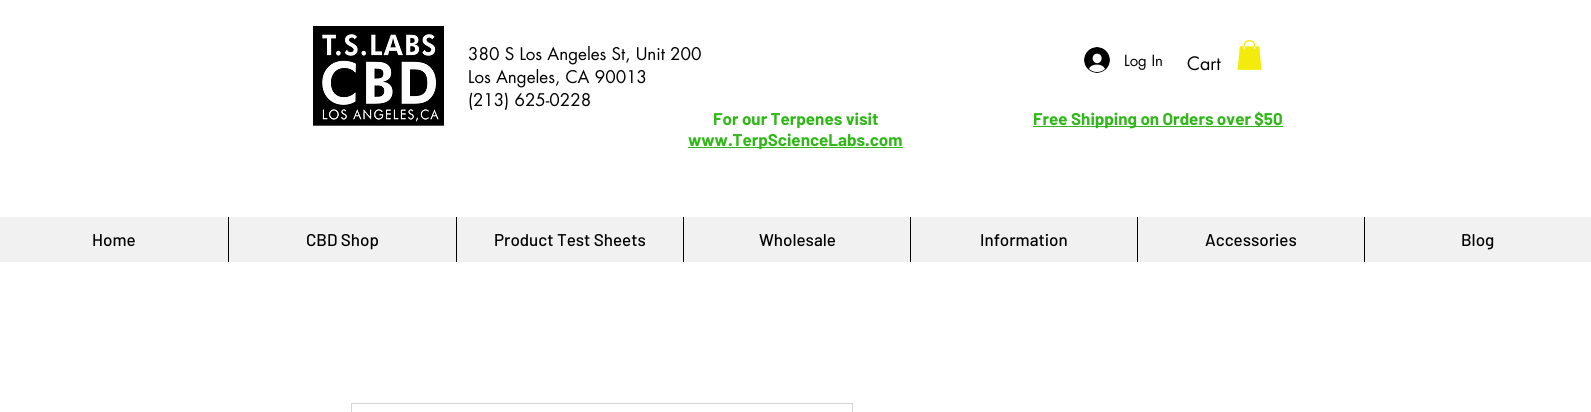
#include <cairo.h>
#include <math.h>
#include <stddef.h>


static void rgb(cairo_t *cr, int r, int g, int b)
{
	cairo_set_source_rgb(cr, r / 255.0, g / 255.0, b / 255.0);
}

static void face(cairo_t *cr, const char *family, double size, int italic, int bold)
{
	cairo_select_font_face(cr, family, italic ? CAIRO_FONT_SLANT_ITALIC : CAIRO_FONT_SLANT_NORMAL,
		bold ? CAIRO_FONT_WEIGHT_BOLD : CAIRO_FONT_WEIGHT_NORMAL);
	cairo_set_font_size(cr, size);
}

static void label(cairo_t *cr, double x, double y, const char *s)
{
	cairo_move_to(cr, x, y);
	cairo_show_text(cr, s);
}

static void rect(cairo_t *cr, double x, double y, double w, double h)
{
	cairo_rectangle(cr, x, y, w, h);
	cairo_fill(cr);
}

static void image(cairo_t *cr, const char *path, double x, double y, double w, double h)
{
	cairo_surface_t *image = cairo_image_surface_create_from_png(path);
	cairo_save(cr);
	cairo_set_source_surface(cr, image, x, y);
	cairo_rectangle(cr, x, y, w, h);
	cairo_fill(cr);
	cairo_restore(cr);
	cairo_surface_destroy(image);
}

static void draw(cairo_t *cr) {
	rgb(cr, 255, 255, 255);
	cairo_paint(cr);
	image(cr, "image0.png", 313, 26, 131, 100);
	face(cr, "futura", 17, 0, 0);
	rgb(cr, 0, 0, 0);
	label(cr, 468, 60, "380 S Los Angeles St, Unit 200");
	label(cr, 468, 83, "Los Angeles, CA 90013");
	label(cr, 468, 106, "(213) 625-0228");
	image(cr, "image1.png", 1084, 47, 26, 26);
	face(cr, "futura", 15, 0, 0);
	label(cr, 1124, 66, "Log In");
	face(cr, "futura", 18, 0, 0);
	label(cr, 1187, 70, "Cart");
	image(cr, "image2.png", 1237, 40, 25, 30);
	face(cr, "Barlow", 17, 0, 1);
	rgb(cr, 48, 184, 24);
	label(cr, 713, 125, "For our Terpenes visit");
	rect(cr, 688, 147, 215, 1);
	label(cr, 688, 146, "www.TerpScienceLabs.com");
	rect(cr, 1033, 126, 250, 1);
	label(cr, 1033, 125, "Free Shipping on Orders over $50");
	rgb(cr, 241, 241, 241);
	rect(cr, 0, 217, 1591, 45);
	face(cr, "Barlow Medium", 17, 0, 0);
	rgb(cr, 0, 0, 0);
	label(cr, 92, 246, "Home");
	rect(cr, 228, 217, 1, 45);
	label(cr, 306, 246, "CBD Shop");
	rect(cr, 456, 217, 1, 45);
	label(cr, 494, 246, "Product Test Sheets");
	rect(cr, 683, 217, 1, 45);
	label(cr, 759, 246, "Wholesale");
	rect(cr, 910, 217, 1, 45);
	label(cr, 980, 246, "Information");
	rect(cr, 1137, 217, 1, 45);
	label(cr, 1205, 246, "Accessories");
	rect(cr, 1364, 217, 1, 45);
	label(cr, 1461, 246, "Blog");
	cairo_rectangle(cr, 351.5, 403.5, 501, 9);
	rgb(cr, 212, 212, 212);
	cairo_set_line_width(cr, 1);
	cairo_stroke(cr);
}

int main(void) {
	cairo_surface_t *surface = cairo_image_surface_create(CAIRO_FORMAT_RGB24, 1591, 412);
	cairo_t *cr = cairo_create(surface);
	cairo_font_options_t *options = cairo_font_options_create();
	cairo_font_options_set_hint_metrics(options, CAIRO_HINT_METRICS_OFF);
	cairo_font_options_set_hint_style(options, CAIRO_HINT_STYLE_NONE);
	cairo_set_font_options(cr, options);
	cairo_set_miter_limit(cr, 4);
	draw(cr);
	cairo_surface_write_to_png(surface, "render.png");
	cairo_font_options_destroy(options);
	cairo_destroy(cr);
	cairo_surface_destroy(surface);
	return 0;
}
